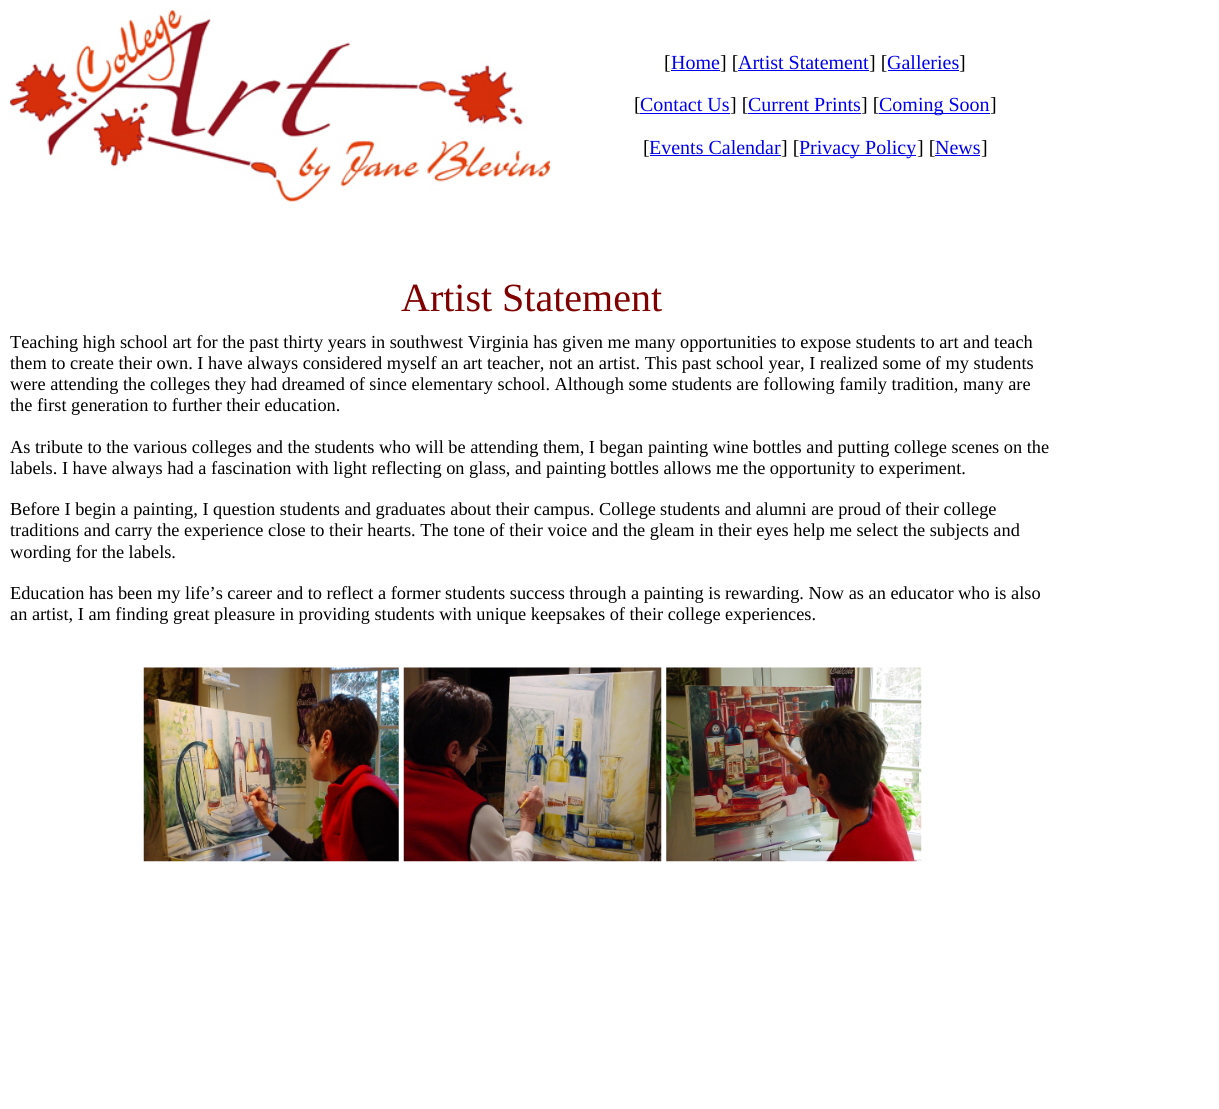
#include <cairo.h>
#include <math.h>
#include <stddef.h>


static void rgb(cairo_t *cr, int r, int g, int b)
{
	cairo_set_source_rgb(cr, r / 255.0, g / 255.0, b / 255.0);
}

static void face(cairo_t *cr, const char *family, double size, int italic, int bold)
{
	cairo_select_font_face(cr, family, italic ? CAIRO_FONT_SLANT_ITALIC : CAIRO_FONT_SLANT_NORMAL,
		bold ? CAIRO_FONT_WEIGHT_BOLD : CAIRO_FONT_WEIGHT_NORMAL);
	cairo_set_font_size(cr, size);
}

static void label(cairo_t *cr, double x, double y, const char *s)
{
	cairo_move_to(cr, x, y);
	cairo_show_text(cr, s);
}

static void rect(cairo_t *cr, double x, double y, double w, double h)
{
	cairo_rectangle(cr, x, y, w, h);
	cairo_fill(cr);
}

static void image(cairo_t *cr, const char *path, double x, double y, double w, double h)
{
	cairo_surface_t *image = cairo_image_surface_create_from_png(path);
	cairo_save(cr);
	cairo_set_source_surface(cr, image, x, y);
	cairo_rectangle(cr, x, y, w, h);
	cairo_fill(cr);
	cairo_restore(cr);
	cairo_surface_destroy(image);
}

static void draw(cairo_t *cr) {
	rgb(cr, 255, 255, 255);
	cairo_paint(cr);
	image(cr, "image0.png", 10, 10, 540, 192);
	face(cr, "Liberation Serif", 20, 0, 0);
	rgb(cr, 0, 0, 0);
	label(cr, 664, 69, "[");
	rgb(cr, 0, 0, 238);
	rect(cr, 671, 70, 49, 1);
	label(cr, 671, 69, "Home");
	rgb(cr, 0, 0, 0);
	label(cr, 720, 69, "] [");
	rgb(cr, 0, 0, 238);
	rect(cr, 738, 70, 131, 1);
	label(cr, 738, 69, "Artist Statement");
	rgb(cr, 0, 0, 0);
	label(cr, 869, 69, "] [");
	rgb(cr, 0, 0, 238);
	label(cr, 887, 69, "Galleries");
	rgb(cr, 0, 0, 0);
	label(cr, 959, 69, "]");
	rgb(cr, 0, 0, 238);
	rect(cr, 888, 70, 71, 1);
	rgb(cr, 0, 0, 0);
	label(cr, 634, 111, "[");
	rgb(cr, 0, 0, 238);
	rect(cr, 640, 113, 90, 1);
	label(cr, 640, 111, "Contact Us");
	rgb(cr, 0, 0, 0);
	label(cr, 730, 111, "] [");
	rgb(cr, 0, 0, 238);
	rect(cr, 748, 113, 113, 1);
	label(cr, 748, 111, "Current Prints");
	rgb(cr, 0, 0, 0);
	label(cr, 861, 111, "] [");
	rgb(cr, 0, 0, 238);
	rect(cr, 879, 113, 111, 1);
	label(cr, 879, 111, "Coming Soon");
	rgb(cr, 0, 0, 0);
	label(cr, 990, 111, "]");
	label(cr, 643, 154, "[");
	rgb(cr, 0, 0, 238);
	label(cr, 649, 154, "Events Calendar");
	rgb(cr, 0, 0, 0);
	label(cr, 781, 154, "] [");
	rgb(cr, 0, 0, 238);
	rect(cr, 650, 155, 131, 1);
	rect(cr, 800, 155, 116, 1);
	label(cr, 799, 154, "Privacy Policy");
	rgb(cr, 0, 0, 0);
	label(cr, 917, 154, "] [");
	rgb(cr, 0, 0, 238);
	rect(cr, 935, 155, 45, 1);
	label(cr, 935, 154, "News");
	rgb(cr, 0, 0, 0);
	label(cr, 981, 154, "]");
	face(cr, "Liberation Serif", 40, 0, 0);
	rgb(cr, 128, 0, 0);
	label(cr, 401, 311, "Artist Statement");
	face(cr, "Liberation Serif", 18.33, 0, 0);
	rgb(cr, 0, 0, 0);
	label(cr, 10, 348, "Teaching high school art for the past thirty years in southwest Virginia has given me many");
	label(cr, 680, 348, "opportunities to expose students to art and teach");
	label(cr, 10, 369, "them to create their own. I have always considered myself an art teacher, not an artist. This past");
	label(cr, 716, 369, "school year, I realized some of my students");
	label(cr, 10, 390, "were attending the colleges they had dreamed of since elementary school. Although some students are following family tradition, many are");
	label(cr, 10, 411, "the first generation to further their education.");
	label(cr, 10, 453, "As tribute to the various colleges and the students who will be attending them, I began");
	label(cr, 648, 453, "painting wine bottles and putting college scenes on the");
	label(cr, 10, 474, "labels. I have always had a fascination with light reflecting on glass, and painting");
	label(cr, 610, 474, "bottles allows me the opportunity to experiment.");
	label(cr, 10, 515, "Before I begin a painting, I question students and graduates about their campus. College");
	label(cr, 660, 515, "students and alumni are proud of their college");
	label(cr, 10, 536, "traditions and carry the experience close to their hearts. The tone of their voice and the gleam in");
	label(cr, 718, 536, "their eyes help me select the subjects and");
	label(cr, 10, 558, "wording for the labels.");
	label(cr, 10, 599, "Education has been my life’s career and to reflect a former students success through a painting is");
	label(cr, 725, 599, "rewarding. Now as an educator who is also");
	label(cr, 10, 620, "an artist, I am finding great pleasure in providing students with unique keepsakes of their college");
	label(cr, 725, 620, "experiences.");
	image(cr, "image1.png", 143, 667, 256, 195);
	image(cr, "image2.png", 403, 667, 259, 195);
	image(cr, "image3.png", 666, 667, 256, 195);
}

int main(void) {
	cairo_surface_t *surface = cairo_image_surface_create(CAIRO_FORMAT_RGB24, 1219, 1109);
	cairo_t *cr = cairo_create(surface);
	cairo_font_options_t *options = cairo_font_options_create();
	cairo_font_options_set_hint_metrics(options, CAIRO_HINT_METRICS_OFF);
	cairo_font_options_set_hint_style(options, CAIRO_HINT_STYLE_NONE);
	cairo_set_font_options(cr, options);
	cairo_set_miter_limit(cr, 4);
	draw(cr);
	cairo_surface_write_to_png(surface, "render.png");
	cairo_font_options_destroy(options);
	cairo_destroy(cr);
	cairo_surface_destroy(surface);
	return 0;
}
